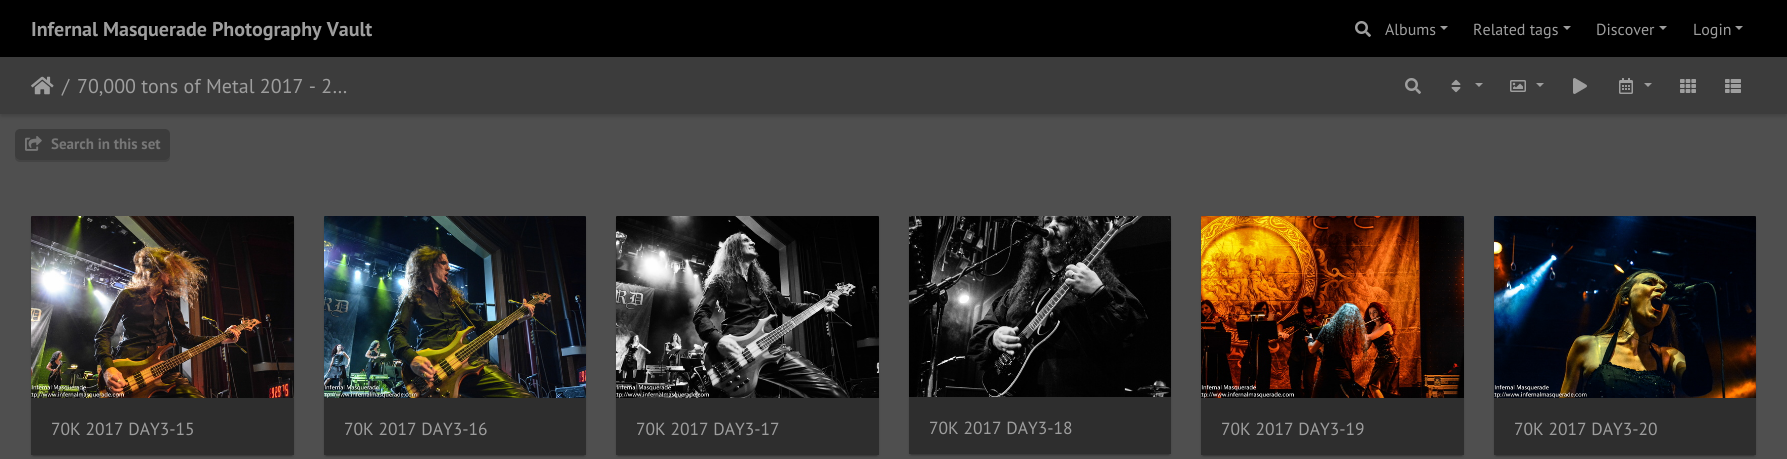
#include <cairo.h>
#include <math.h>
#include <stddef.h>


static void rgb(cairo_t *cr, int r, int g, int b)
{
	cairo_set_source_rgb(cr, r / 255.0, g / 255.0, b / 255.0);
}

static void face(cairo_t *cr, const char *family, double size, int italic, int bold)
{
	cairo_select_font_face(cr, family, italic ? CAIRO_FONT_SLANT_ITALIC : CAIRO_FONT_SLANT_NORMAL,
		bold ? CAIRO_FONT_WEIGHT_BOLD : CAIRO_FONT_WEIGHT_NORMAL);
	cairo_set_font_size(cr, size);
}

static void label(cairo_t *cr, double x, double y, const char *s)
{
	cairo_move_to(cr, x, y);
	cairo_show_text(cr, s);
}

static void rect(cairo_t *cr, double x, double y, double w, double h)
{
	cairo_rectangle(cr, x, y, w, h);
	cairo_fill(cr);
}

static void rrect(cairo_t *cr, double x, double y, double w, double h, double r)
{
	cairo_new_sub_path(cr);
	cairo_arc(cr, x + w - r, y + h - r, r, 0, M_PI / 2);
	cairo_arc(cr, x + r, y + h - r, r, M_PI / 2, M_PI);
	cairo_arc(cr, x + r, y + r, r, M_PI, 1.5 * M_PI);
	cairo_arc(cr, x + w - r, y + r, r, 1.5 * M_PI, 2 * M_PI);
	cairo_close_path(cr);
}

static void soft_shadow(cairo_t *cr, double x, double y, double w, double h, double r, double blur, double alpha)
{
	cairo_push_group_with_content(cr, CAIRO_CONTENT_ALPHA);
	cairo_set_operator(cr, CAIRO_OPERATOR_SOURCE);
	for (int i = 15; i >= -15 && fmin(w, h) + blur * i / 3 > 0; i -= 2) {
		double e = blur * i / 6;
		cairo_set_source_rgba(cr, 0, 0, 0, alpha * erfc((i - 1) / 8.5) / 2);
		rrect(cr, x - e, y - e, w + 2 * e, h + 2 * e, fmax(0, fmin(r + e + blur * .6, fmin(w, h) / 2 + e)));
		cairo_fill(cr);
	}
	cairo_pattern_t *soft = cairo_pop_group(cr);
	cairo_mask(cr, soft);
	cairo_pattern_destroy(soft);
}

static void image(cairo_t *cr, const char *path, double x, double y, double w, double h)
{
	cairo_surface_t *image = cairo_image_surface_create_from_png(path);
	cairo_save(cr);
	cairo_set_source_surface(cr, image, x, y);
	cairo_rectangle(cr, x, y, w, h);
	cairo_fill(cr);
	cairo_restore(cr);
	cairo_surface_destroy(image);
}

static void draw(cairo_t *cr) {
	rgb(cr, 79, 79, 79);
	cairo_paint(cr);
	rgb(cr, 0, 0, 0);
	soft_shadow(cr, 1, 61, 1785, 55, 0, 2.5, 0.2);
	rgb(cr, 0, 0, 0);
	rect(cr, 0, 0, 1787, 57);
	face(cr, "PT Sans", 20, 0, 1);
	rgb(cr, 158, 158, 158);
	label(cr, 31, 36, "Infernal Masquerade Photography Vault");
	image(cr, "image0.png", 1355, 21, 16, 16);
	face(cr, "PT Sans", 16, 0, 0);
	label(cr, 1385, 35, "Albums");
	cairo_new_path(cr);
	cairo_move_to(cr, 1440, 26);
	cairo_line_to(cr, 1448, 26);
	cairo_line_to(cr, 1444, 30);
	cairo_close_path(cr);
	cairo_fill(cr);
	label(cr, 1473, 35, "Related tags");
	cairo_new_path(cr);
	cairo_move_to(cr, 1563, 26);
	cairo_line_to(cr, 1571, 26);
	cairo_line_to(cr, 1567, 30);
	cairo_close_path(cr);
	cairo_fill(cr);
	label(cr, 1596, 35, "Discover");
	cairo_new_path(cr);
	cairo_move_to(cr, 1659, 26);
	cairo_line_to(cr, 1667, 26);
	cairo_line_to(cr, 1663, 30);
	cairo_close_path(cr);
	cairo_fill(cr);
	label(cr, 1693, 35, "Login");
	cairo_new_path(cr);
	cairo_move_to(cr, 1735, 26);
	cairo_line_to(cr, 1743, 26);
	cairo_line_to(cr, 1739, 30);
	cairo_close_path(cr);
	cairo_fill(cr);
	rgb(cr, 60, 60, 60);
	rect(cr, 0, 57, 1787, 57);
	image(cr, "image1.png", 31, 76, 23, 19);
	face(cr, "PT Sans", 20, 0, 0);
	rgb(cr, 158, 158, 158);
	label(cr, 62, 93, "/");
	label(cr, 77, 93, "70,000 tons of Metal 2017 - 2…");
	image(cr, "image2.png", 1405, 78, 16, 16);
	image(cr, "image3.png", 1451, 79, 10, 14);
	cairo_new_path(cr);
	cairo_move_to(cr, 1475, 83);
	cairo_line_to(cr, 1483, 83);
	cairo_line_to(cr, 1479, 87);
	cairo_close_path(cr);
	cairo_fill(cr);
	image(cr, "image4.png", 1510, 80, 16, 12);
	cairo_new_path(cr);
	cairo_move_to(cr, 1536, 83);
	cairo_line_to(cr, 1544, 83);
	cairo_line_to(cr, 1540, 87);
	cairo_close_path(cr);
	cairo_fill(cr);
	image(cr, "image5.png", 1573, 78, 14, 16);
	image(cr, "image6.png", 1619, 78, 14, 16);
	cairo_new_path(cr);
	cairo_move_to(cr, 1644, 83);
	cairo_line_to(cr, 1652, 83);
	cairo_line_to(cr, 1648, 87);
	cairo_close_path(cr);
	cairo_fill(cr);
	image(cr, "image7.png", 1680, 79, 16, 14);
	image(cr, "image8.png", 1725, 79, 16, 14);
	rgb(cr, 68, 68, 68);
	cairo_new_path(cr);
	cairo_move_to(cr, 15, 155);
	cairo_line_to(cr, 15, 157);
	cairo_curve_to(cr, 15, 160, 17, 162, 20, 162);
	cairo_line_to(cr, 165, 162);
	cairo_curve_to(cr, 168, 162, 170, 160, 170, 157);
	cairo_line_to(cr, 170, 155);
	cairo_curve_to(cr, 170, 158, 168, 160, 165, 160);
	cairo_line_to(cr, 20, 160);
	cairo_curve_to(cr, 17, 160, 15, 158, 15, 155);
	cairo_close_path(cr);
	cairo_fill(cr);
	rgb(cr, 60, 60, 60);
	rrect(cr, 15, 129, 155, 31, 5);
	cairo_fill(cr);
	image(cr, "image9.png", 25, 136, 17, 15);
	face(cr, "PT Sans", 15, 0, 1);
	rgb(cr, 119, 119, 119);
	label(cr, 51, 149, "Search in this set");
	rgb(cr, 0, 0, 0);
	soft_shadow(cr, 33, 221, 259, 235, 0, 0.5, 0.2);
	soft_shadow(cr, 31, 218, 263, 239, 2, 1, 0.14);
	image(cr, "image10.png", 31, 216, 263, 182);
	rgb(cr, 46, 46, 46);
	rect(cr, 31, 398, 263, 57);
	face(cr, "PT Sans", 17.5, 0, 0);
	rgb(cr, 158, 158, 158);
	label(cr, 51, 435, "70K 2017 DAY3-15");
	rgb(cr, 0, 0, 0);
	soft_shadow(cr, 326, 221, 258, 235, 0, 0.5, 0.2);
	soft_shadow(cr, 324, 218, 262, 239, 2, 1, 0.14);
	image(cr, "image11.png", 324, 216, 262, 182);
	rgb(cr, 46, 46, 46);
	rect(cr, 324, 398, 262, 57);
	rgb(cr, 158, 158, 158);
	label(cr, 344, 435, "70K 2017 DAY3-16");
	rgb(cr, 0, 0, 0);
	soft_shadow(cr, 618, 221, 259, 235, 0, 0.5, 0.2);
	soft_shadow(cr, 616, 218, 263, 239, 2, 1, 0.14);
	image(cr, "image12.png", 616, 216, 263, 182);
	rgb(cr, 46, 46, 46);
	rect(cr, 616, 398, 263, 57);
	rgb(cr, 158, 158, 158);
	label(cr, 636, 435, "70K 2017 DAY3-17");
	rgb(cr, 0, 0, 0);
	soft_shadow(cr, 911, 221, 258, 234, 0, 0.5, 0.2);
	soft_shadow(cr, 909, 218, 262, 238, 2, 1, 0.14);
	image(cr, "image13.png", 909, 216, 262, 181);
	rgb(cr, 46, 46, 46);
	rect(cr, 909, 397, 262, 57);
	rgb(cr, 158, 158, 158);
	label(cr, 929, 434, "70K 2017 DAY3-18");
	rgb(cr, 0, 0, 0);
	soft_shadow(cr, 1203, 221, 259, 235, 0, 0.5, 0.2);
	soft_shadow(cr, 1201, 218, 263, 239, 2, 1, 0.14);
	image(cr, "image14.png", 1201, 216, 263, 182);
	rgb(cr, 46, 46, 46);
	rect(cr, 1201, 398, 263, 57);
	rgb(cr, 158, 158, 158);
	label(cr, 1221, 435, "70K 2017 DAY3-19");
	rgb(cr, 0, 0, 0);
	soft_shadow(cr, 1496, 221, 258, 235, 0, 0.5, 0.2);
	soft_shadow(cr, 1494, 218, 262, 239, 2, 1, 0.14);
	image(cr, "image15.png", 1494, 216, 262, 182);
	rgb(cr, 46, 46, 46);
	rect(cr, 1494, 398, 262, 57);
	rgb(cr, 158, 158, 158);
	label(cr, 1514, 435, "70K 2017 DAY3-20");
}

int main(void) {
	cairo_surface_t *surface = cairo_image_surface_create(CAIRO_FORMAT_RGB24, 1787, 459);
	cairo_t *cr = cairo_create(surface);
	cairo_font_options_t *options = cairo_font_options_create();
	cairo_font_options_set_hint_metrics(options, CAIRO_HINT_METRICS_OFF);
	cairo_font_options_set_hint_style(options, CAIRO_HINT_STYLE_NONE);
	cairo_set_font_options(cr, options);
	cairo_set_miter_limit(cr, 4);
	draw(cr);
	cairo_surface_write_to_png(surface, "render.png");
	cairo_font_options_destroy(options);
	cairo_destroy(cr);
	cairo_surface_destroy(surface);
	return 0;
}
